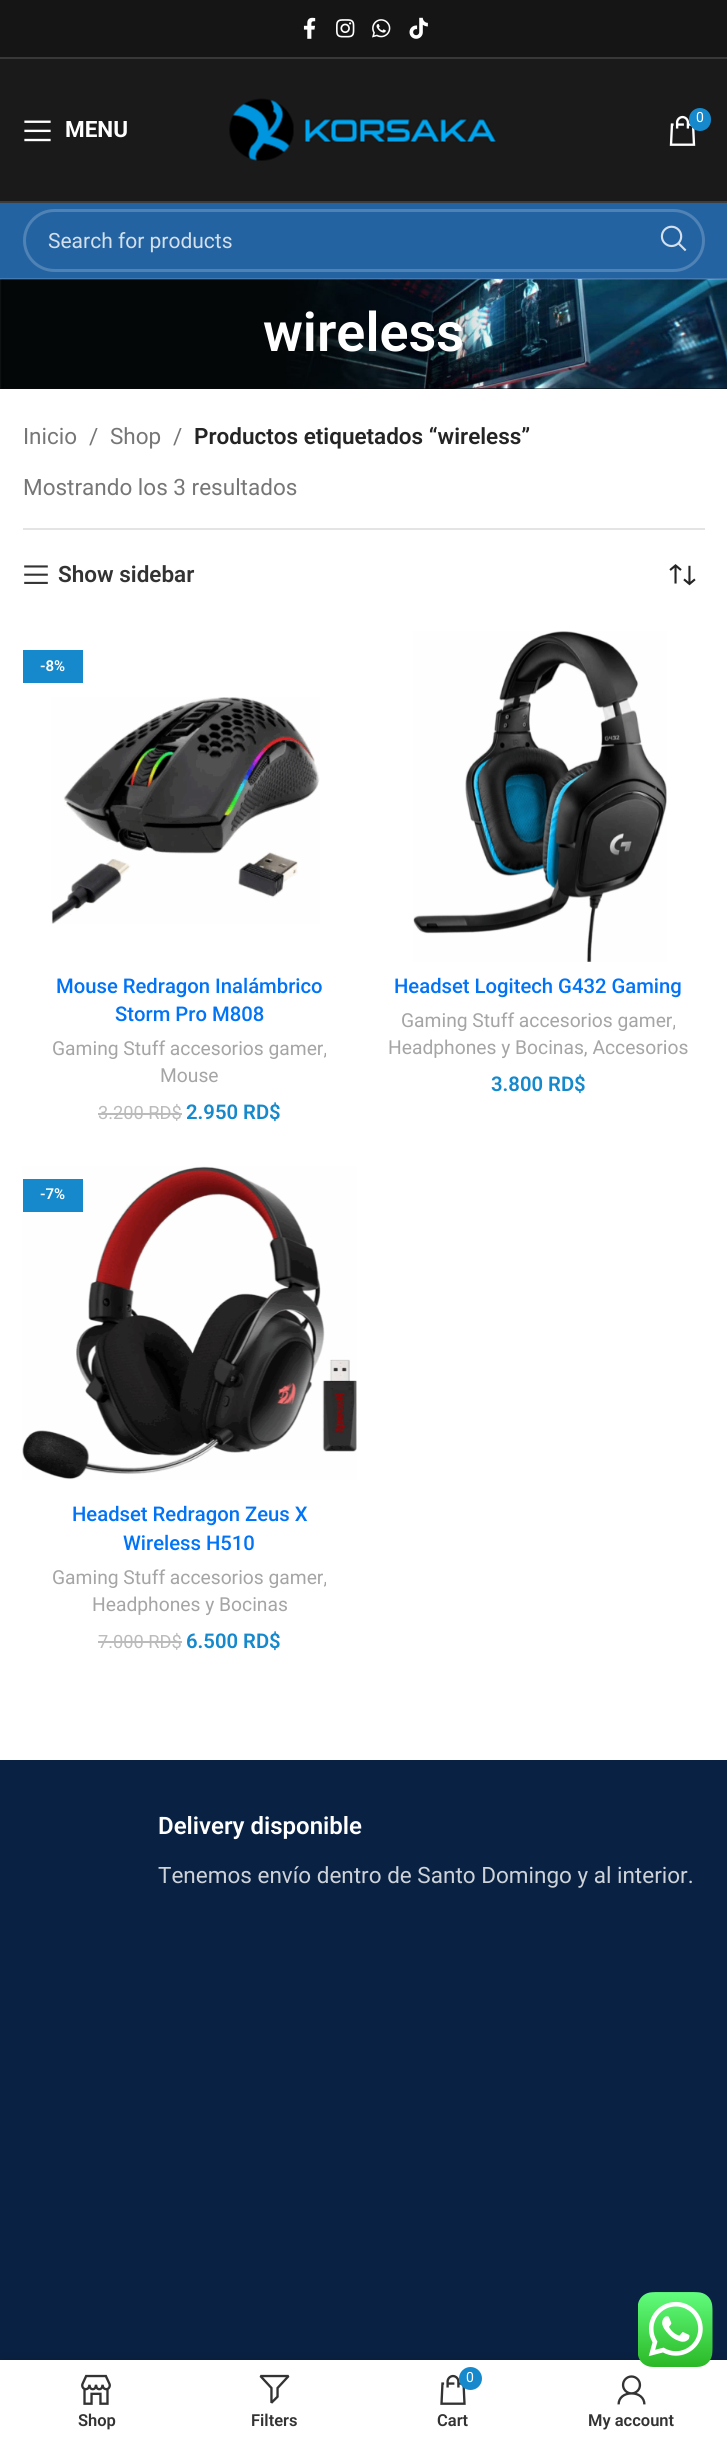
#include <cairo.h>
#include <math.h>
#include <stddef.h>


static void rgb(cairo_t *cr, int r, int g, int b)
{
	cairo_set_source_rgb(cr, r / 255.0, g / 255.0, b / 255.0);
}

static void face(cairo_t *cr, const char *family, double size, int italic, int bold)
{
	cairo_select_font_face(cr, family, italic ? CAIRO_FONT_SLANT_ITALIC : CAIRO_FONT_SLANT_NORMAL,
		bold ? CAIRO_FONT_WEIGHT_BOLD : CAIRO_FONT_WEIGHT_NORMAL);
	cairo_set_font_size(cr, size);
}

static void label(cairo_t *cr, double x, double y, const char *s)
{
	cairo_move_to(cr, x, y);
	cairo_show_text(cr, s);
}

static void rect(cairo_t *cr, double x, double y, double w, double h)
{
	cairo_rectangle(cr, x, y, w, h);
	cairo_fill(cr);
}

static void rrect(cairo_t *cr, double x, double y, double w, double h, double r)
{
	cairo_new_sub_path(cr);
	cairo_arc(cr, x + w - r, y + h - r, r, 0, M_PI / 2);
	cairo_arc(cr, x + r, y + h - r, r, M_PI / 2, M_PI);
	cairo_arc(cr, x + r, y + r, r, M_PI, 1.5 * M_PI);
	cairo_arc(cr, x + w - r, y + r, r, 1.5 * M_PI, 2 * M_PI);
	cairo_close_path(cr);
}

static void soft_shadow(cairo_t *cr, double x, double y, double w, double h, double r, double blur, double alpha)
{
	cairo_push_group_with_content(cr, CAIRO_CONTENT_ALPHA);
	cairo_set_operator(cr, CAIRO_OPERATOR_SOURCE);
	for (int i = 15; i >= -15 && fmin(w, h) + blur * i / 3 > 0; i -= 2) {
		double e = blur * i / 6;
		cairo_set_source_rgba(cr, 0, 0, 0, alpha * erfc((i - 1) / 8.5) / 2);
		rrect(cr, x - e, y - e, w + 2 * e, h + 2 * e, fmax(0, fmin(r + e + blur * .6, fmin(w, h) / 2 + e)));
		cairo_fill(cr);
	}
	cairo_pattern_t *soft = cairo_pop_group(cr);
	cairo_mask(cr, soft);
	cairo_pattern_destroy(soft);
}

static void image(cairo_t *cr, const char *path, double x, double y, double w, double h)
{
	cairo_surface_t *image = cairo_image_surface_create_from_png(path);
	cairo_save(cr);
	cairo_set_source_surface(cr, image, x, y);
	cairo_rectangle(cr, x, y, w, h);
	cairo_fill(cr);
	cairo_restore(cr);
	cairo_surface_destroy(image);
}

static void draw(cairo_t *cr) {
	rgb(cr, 255, 255, 255);
	cairo_paint(cr);
	rgb(cr, 21, 21, 21);
	rect(cr, 0, 0, 727, 57);
	rgb(cr, 56, 56, 56);
	rect(cr, 0, 57, 727, 2);
	image(cr, "image0.png", 303, 17, 13, 22);
	image(cr, "image1.png", 336, 19, 19, 19);
	image(cr, "image2.png", 372, 19, 19, 19);
	image(cr, "image3.png", 409, 17, 19, 22);
	rgb(cr, 26, 26, 26);
	rect(cr, 0, 59, 727, 142);
	rgb(cr, 60, 60, 60);
	rect(cr, 0, 201, 727, 2);
	image(cr, "image4.png", 229, 98, 267, 63);
	image(cr, "image5.png", 669, 115, 27, 31);
	rgb(cr, 22, 137, 204);
	rrect(cr, 689, 108, 22, 23, 11);
	cairo_fill(cr);
	face(cr, "Roboto", 14, 0, 0);
	rgb(cr, 255, 255, 255);
	label(cr, 696, 122, "0");
	image(cr, "image6.png", 24, 120, 27, 22);
	face(cr, "Roboto", 22.5, 0, 1);
	label(cr, 65, 137, "MENU");
	rgb(cr, 35, 99, 162);
	rect(cr, 0, 203, 727, 76);
	rgb(cr, 10, 10, 10);
	rect(cr, 0, 388, 727, 1);
	image(cr, "image8.png", 0, 279, 727, 110);
	cairo_set_source_rgba(cr, 1, 1, 1, 0.15);
	rect(cr, 0, 278, 727, 2);
	rrect(cr, 24.5, 210.5, 679, 60, 30);
	rgb(cr, 79, 130, 181);
	cairo_set_line_width(cr, 3);
	cairo_stroke(cr);
	face(cr, "Roboto", 21, 0, 0);
	rgb(cr, 211, 224, 236);
	label(cr, 48, 248, "Search for products");
	image(cr, "image7.png", 660, 225, 27, 27);
	face(cr, "Roboto SemiBold", 54, 0, 0);
	rgb(cr, 255, 255, 255);
	label(cr, 263, 351, "wireless");
	rgb(cr, 228, 228, 228);
	rect(cr, 23, 528, 682, 2);
	face(cr, "Roboto", 22.5, 0, 0);
	rgb(cr, 118, 118, 118);
	label(cr, 23, 444, "Inicio");
	label(cr, 89, 444, "/");
	label(cr, 110, 444, "Shop");
	label(cr, 173, 444, "/");
	face(cr, "Roboto SemiBold", 22.5, 0, 0);
	rgb(cr, 36, 36, 36);
	label(cr, 194, 444, "Productos etiquetados “wireless”");
	face(cr, "Roboto", 22.5, 0, 0);
	rgb(cr, 118, 118, 118);
	label(cr, 23, 495, "Mostrando los 3 resultados");
	image(cr, "image9.png", 24, 565, 24, 19);
	face(cr, "Roboto SemiBold", 22.5, 0, 0);
	rgb(cr, 51, 51, 51);
	label(cr, 58, 582, "Show sidebar");
	image(cr, "image10.png", 669, 564, 27, 22);
	rgb(cr, 22, 137, 204);
	rect(cr, 23, 650, 60, 33);
	face(cr, "Roboto SemiBold", 15, 0, 0);
	rgb(cr, 255, 255, 255);
	label(cr, 40, 671, "-8%");
	image(cr, "image11.png", 51, 697, 269, 227);
	face(cr, "Roboto Medium", 20.25, 0, 0);
	rgb(cr, 0, 115, 247);
	label(cr, 56, 993, "Mouse Redragon Inalámbrico");
	label(cr, 115, 1021, "Storm Pro M808");
	face(cr, "Roboto", 19.25, 0, 0);
	rgb(cr, 165, 165, 165);
	label(cr, 52, 1055, "Gaming Stuff accesorios gamer,");
	label(cr, 160, 1082, "Mouse");
	face(cr, "Roboto", 18.25, 0, 0);
	rgb(cr, 187, 187, 187);
	label(cr, 98, 1119, "3.200 RD$");
	rect(cr, 98, 1113, 84, 2);
	face(cr, "Roboto SemiBold", 20.25, 0, 0);
	rgb(cr, 22, 137, 204);
	label(cr, 186, 1119, "2.950 RD$");
	image(cr, "image12.png", 413, 631, 254, 331);
	face(cr, "Roboto Medium", 20.25, 0, 0);
	rgb(cr, 0, 115, 247);
	label(cr, 394, 993, "Headset Logitech G432 Gaming");
	face(cr, "Roboto", 19.25, 0, 0);
	rgb(cr, 165, 165, 165);
	label(cr, 401, 1027, "Gaming Stuff accesorios gamer,");
	label(cr, 388, 1054, "Headphones y Bocinas, Accesorios");
	face(cr, "Roboto SemiBold", 20.25, 0, 0);
	rgb(cr, 22, 137, 204);
	label(cr, 491, 1091, "3.800 RD$");
	image(cr, "image13.png", 22, 1166, 335, 314);
	rect(cr, 23, 1179, 60, 33);
	face(cr, "Roboto SemiBold", 15, 0, 0);
	rgb(cr, 255, 255, 255);
	label(cr, 40, 1199, "-7%");
	face(cr, "Roboto Medium", 20.25, 0, 0);
	rgb(cr, 0, 115, 247);
	label(cr, 72, 1521, "Headset Redragon Zeus X");
	label(cr, 123, 1550, "Wireless H510");
	face(cr, "Roboto", 19.25, 0, 0);
	rgb(cr, 165, 165, 165);
	label(cr, 52, 1584, "Gaming Stuff accesorios gamer,");
	label(cr, 92, 1611, "Headphones y Bocinas");
	face(cr, "Roboto", 18.25, 0, 0);
	rgb(cr, 187, 187, 187);
	label(cr, 98, 1648, "7.000 RD$");
	rect(cr, 98, 1641, 84, 2);
	face(cr, "Roboto SemiBold", 20.25, 0, 0);
	rgb(cr, 22, 137, 204);
	label(cr, 186, 1648, "6.500 RD$");
	rgb(cr, 9, 33, 67);
	rect(cr, 0, 1760, 727, 600);
	face(cr, "Roboto SemiBold", 24, 0, 0);
	rgb(cr, 255, 255, 255);
	label(cr, 158, 1834, "Delivery disponible");
	face(cr, "Roboto", 22.5, 0, 0);
	rgb(cr, 206, 211, 217);
	label(cr, 158, 1883, "Tenemos envío dentro de Santo Domingo y al interior.");
	rgb(cr, 0, 0, 0);
	soft_shadow(cr, 0, 2360, 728, 82, 0, 7, 0.12);
	rgb(cr, 255, 255, 255);
	rect(cr, 0, 2360, 727, 82);
	image(cr, "image14.png", 638, 2292, 75, 75);
	image(cr, "image15.png", 81, 2374, 30, 31);
	face(cr, "Roboto SemiBold", 16.5, 0, 0);
	rgb(cr, 51, 51, 51);
	label(cr, 78, 2426, "Shop");
	image(cr, "image16.png", 259, 2374, 31, 30);
	label(cr, 251, 2426, "Filters");
	image(cr, "image17.png", 440, 2374, 26, 31);
	rgb(cr, 22, 137, 204);
	cairo_arc(cr, 470.5, 2378.5, 11.5, 0, 2 * M_PI);
	cairo_fill(cr);
	face(cr, "Roboto", 14, 0, 0);
	rgb(cr, 255, 255, 255);
	label(cr, 466, 2382, "0");
	face(cr, "Roboto SemiBold", 16.5, 0, 0);
	rgb(cr, 51, 51, 51);
	label(cr, 437, 2426, "Cart");
	image(cr, "image18.png", 617, 2375, 29, 30);
	label(cr, 588, 2426, "My account");
}

int main(void) {
	cairo_surface_t *surface = cairo_image_surface_create(CAIRO_FORMAT_RGB24, 727, 2442);
	cairo_t *cr = cairo_create(surface);
	cairo_font_options_t *options = cairo_font_options_create();
	cairo_font_options_set_hint_metrics(options, CAIRO_HINT_METRICS_OFF);
	cairo_font_options_set_hint_style(options, CAIRO_HINT_STYLE_NONE);
	cairo_set_font_options(cr, options);
	cairo_set_miter_limit(cr, 4);
	draw(cr);
	cairo_surface_write_to_png(surface, "render.png");
	cairo_font_options_destroy(options);
	cairo_destroy(cr);
	cairo_surface_destroy(surface);
	return 0;
}
